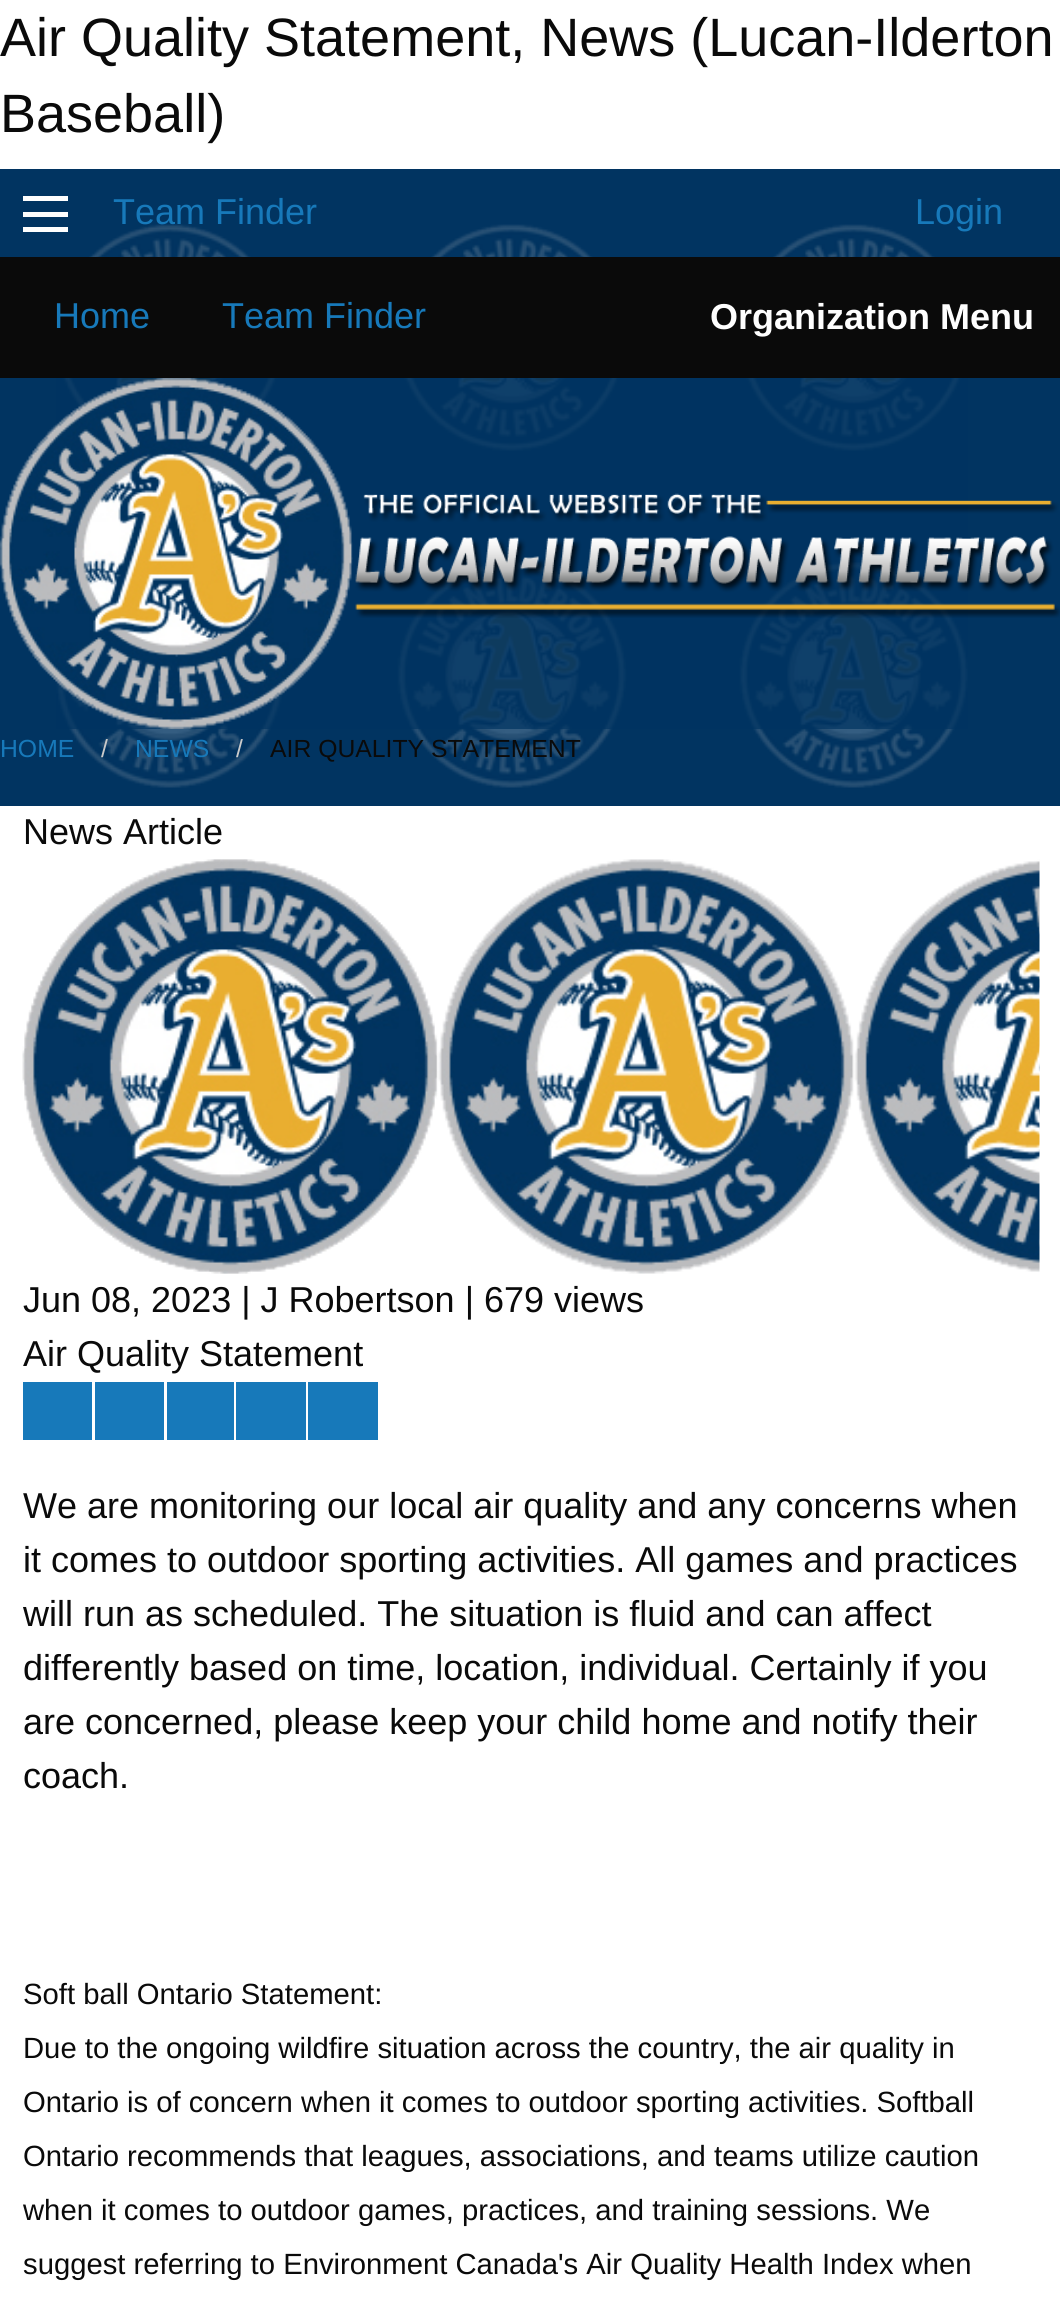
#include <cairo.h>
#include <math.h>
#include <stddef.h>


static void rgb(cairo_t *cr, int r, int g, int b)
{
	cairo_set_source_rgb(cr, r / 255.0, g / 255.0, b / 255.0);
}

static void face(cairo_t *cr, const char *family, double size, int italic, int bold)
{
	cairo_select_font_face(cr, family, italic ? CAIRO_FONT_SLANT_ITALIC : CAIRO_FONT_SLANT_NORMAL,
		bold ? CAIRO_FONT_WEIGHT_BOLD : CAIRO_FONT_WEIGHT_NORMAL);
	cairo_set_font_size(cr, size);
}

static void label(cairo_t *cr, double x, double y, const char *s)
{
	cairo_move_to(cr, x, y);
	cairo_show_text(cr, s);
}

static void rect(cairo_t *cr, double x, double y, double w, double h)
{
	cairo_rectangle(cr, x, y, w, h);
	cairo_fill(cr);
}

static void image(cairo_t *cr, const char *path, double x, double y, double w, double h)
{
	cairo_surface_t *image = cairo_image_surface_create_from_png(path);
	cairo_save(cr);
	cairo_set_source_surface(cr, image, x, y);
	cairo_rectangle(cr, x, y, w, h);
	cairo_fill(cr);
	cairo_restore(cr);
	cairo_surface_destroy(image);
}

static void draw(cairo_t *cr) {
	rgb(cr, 255, 255, 255);
	cairo_paint(cr);
	face(cr, "Liberation Sans", 54, 0, 0);
	rgb(cr, 10, 10, 10);
	label(cr, 0, 56, "Air Quality Statement, News (Lucan-Ilderton");
	label(cr, 0, 132, "Baseball)");
	rgb(cr, 1, 52, 97);
	rect(cr, 0, 169, 1060, 637);
	image(cr, "image0.png", 56, 224, 912, 564);
	rgb(cr, 254, 254, 254);
	rect(cr, 23, 227, 45, 5);
	rect(cr, 23, 212, 45, 5);
	rect(cr, 23, 196, 45, 5);
	face(cr, "Liberation Sans", 36, 0, 0);
	rgb(cr, 23, 121, 186);
	label(cr, 113, 224, "Team Finder");
	label(cr, 915, 224, "Login");
	rgb(cr, 10, 10, 10);
	rect(cr, 0, 257, 1060, 121);
	rgb(cr, 23, 121, 186);
	label(cr, 54, 328, "Home");
	label(cr, 222, 328, "Team Finder");
	face(cr, "Liberation Sans", 36, 0, 1);
	rgb(cr, 254, 254, 254);
	label(cr, 710, 329, "Organization Menu");
	cairo_set_source_rgba(cr, 0.004, 0.204, 0.38, 0.7);
	rect(cr, 56, 378, 912, 351);
	image(cr, "image1.png", 0, 378, 353, 351);
	image(cr, "image2.png", 355, 493, 705, 125);
	face(cr, "Liberation Sans", 24.75, 0, 0);
	rgb(cr, 23, 121, 186);
	label(cr, 0, 757, "HOME");
	rgb(cr, 202, 202, 202);
	label(cr, 101, 757, "/");
	rgb(cr, 23, 121, 186);
	label(cr, 135, 757, "NEWS");
	rgb(cr, 202, 202, 202);
	label(cr, 236, 757, "/");
	rgb(cr, 10, 10, 10);
	label(cr, 270, 757, "AIR QUALITY STATEMENT");
	face(cr, "Liberation Sans", 36, 0, 0);
	label(cr, 23, 844, "News Article");
	image(cr, "image3.png", 22, 859, 1018, 415);
	image(cr, "image4.png", 22, 859, 416, 415);
	label(cr, 23, 1312, "Jun 08, 2023 | J Robertson | 679 views");
	label(cr, 23, 1366, "Air Quality Statement");
	rgb(cr, 23, 121, 186);
	rect(cr, 23, 1382, 69, 58);
	rect(cr, 95, 1382, 69, 58);
	rect(cr, 167, 1382, 67, 58);
	rect(cr, 236, 1382, 70, 58);
	rect(cr, 308, 1382, 70, 58);
	rgb(cr, 10, 10, 10);
	label(cr, 23, 1518, "We are monitoring our local air quality and any concerns when");
	label(cr, 23, 1572, "it comes to outdoor sporting activities. All games and practices");
	label(cr, 23, 1626, "will run as scheduled. The situation is fluid and can affect");
	label(cr, 23, 1680, "differently based on time, location, individual. Certainly if you");
	label(cr, 23, 1734, "are concerned, please keep your child home and notify their");
	label(cr, 23, 1788, "coach.");
	face(cr, "Liberation Sans", 29.25, 0, 0);
	label(cr, 23, 2004, "Soft ball Ontario Statement:");
	label(cr, 23, 2058, "Due to the ongoing wildfire situation across the country, the air quality in");
	label(cr, 23, 2112, "Ontario is of concern when it comes to outdoor sporting activities. Softball");
	label(cr, 23, 2166, "Ontario recommends that leagues, associations, and teams utilize caution");
	label(cr, 23, 2220, "when it comes to outdoor games, practices, and training sessions. We");
	label(cr, 23, 2274, "suggest referring to Environment Canada's Air Quality Health Index when");
}

int main(void) {
	cairo_surface_t *surface = cairo_image_surface_create(CAIRO_FORMAT_RGB24, 1060, 2310);
	cairo_t *cr = cairo_create(surface);
	cairo_font_options_t *options = cairo_font_options_create();
	cairo_font_options_set_hint_metrics(options, CAIRO_HINT_METRICS_OFF);
	cairo_font_options_set_hint_style(options, CAIRO_HINT_STYLE_NONE);
	cairo_set_font_options(cr, options);
	cairo_set_miter_limit(cr, 4);
	draw(cr);
	cairo_surface_write_to_png(surface, "render.png");
	cairo_font_options_destroy(options);
	cairo_destroy(cr);
	cairo_surface_destroy(surface);
	return 0;
}
